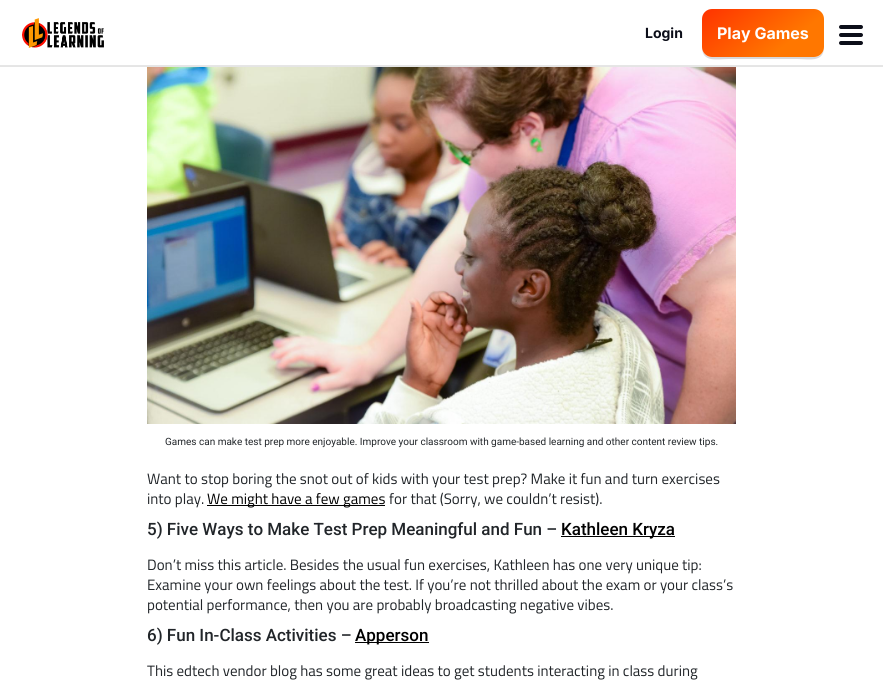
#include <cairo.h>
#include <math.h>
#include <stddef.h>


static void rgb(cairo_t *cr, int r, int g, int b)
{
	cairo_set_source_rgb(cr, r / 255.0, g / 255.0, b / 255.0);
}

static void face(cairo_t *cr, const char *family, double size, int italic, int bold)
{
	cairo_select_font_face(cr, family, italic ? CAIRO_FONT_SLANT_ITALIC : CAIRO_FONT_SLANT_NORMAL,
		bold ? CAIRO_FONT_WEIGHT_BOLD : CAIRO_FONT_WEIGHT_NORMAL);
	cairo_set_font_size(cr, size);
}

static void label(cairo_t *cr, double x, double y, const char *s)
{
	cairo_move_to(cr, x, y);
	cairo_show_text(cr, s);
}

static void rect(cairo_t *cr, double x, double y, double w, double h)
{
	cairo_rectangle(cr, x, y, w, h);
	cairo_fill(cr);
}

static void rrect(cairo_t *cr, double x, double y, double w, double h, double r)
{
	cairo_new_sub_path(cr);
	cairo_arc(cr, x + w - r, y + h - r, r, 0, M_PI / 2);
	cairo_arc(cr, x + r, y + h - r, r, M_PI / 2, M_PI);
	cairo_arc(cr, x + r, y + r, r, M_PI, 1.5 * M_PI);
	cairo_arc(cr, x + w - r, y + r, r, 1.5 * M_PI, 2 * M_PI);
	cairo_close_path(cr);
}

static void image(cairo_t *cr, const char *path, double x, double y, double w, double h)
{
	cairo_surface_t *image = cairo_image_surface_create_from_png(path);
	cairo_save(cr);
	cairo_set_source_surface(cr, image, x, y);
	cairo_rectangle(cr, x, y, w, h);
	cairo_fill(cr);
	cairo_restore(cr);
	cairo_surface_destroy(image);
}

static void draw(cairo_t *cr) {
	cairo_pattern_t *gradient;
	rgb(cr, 255, 255, 255);
	cairo_paint(cr);
	rgb(cr, 229, 229, 229);
	rect(cr, 0, 66, 883, 1);
	rgb(cr, 230, 230, 230);
	rect(cr, 0, 65, 883, 1);
	image(cr, "image0.png", 22, 18, 82, 30);
	face(cr, "Inter", 14, 0, 1);
	rgb(cr, 12, 14, 25);
	label(cr, 645, 38, "Login");
	rgb(cr, 216, 216, 218);
	cairo_new_path(cr);
	cairo_move_to(cr, 702, 47);
	cairo_curve_to(cr, 702, 63, 717, 59, 729, 59);
	cairo_line_to(cr, 797, 59);
	cairo_curve_to(cr, 809, 59, 824, 63, 824, 47);
	cairo_curve_to(cr, 824, 53, 820, 57, 814, 57);
	cairo_line_to(cr, 712, 57);
	cairo_curve_to(cr, 706, 57, 702, 53, 702, 47);
	cairo_close_path(cr);
	cairo_fill(cr);
	gradient = cairo_pattern_create_linear(691, -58, 798, 77);
	cairo_pattern_add_color_stop_rgba(gradient, 0, 1, 0, 0, 1);
	cairo_pattern_add_color_stop_rgba(gradient, 0.81, 1, 0.467, 0, 1);
	cairo_set_source(cr, gradient);
	cairo_pattern_destroy(gradient);
	rrect(cr, 702, 9, 122, 48, 10);
	cairo_fill(cr);
	face(cr, "Inter", 16, 0, 1);
	rgb(cr, 255, 255, 255);
	label(cr, 717, 39, "Play Games");
	rgb(cr, 12, 14, 25);
	rrect(cr, 839, 25, 24, 4, 2);
	cairo_fill(cr);
	rrect(cr, 839, 33, 24, 4, 2);
	cairo_fill(cr);
	rrect(cr, 839, 41, 24, 4, 2);
	cairo_fill(cr);
	image(cr, "image1.png", 147, 67, 589, 357);
	face(cr, "Roboto", 10, 0, 0);
	rgb(cr, 33, 37, 41);
	label(cr, 165, 445, "Games can make test prep more enjoyable. Improve your classroom with game-based learning and other content review tips.");
	face(cr, "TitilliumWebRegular", 15, 0, 0);
	label(cr, 147, 484, "Want to stop boring the snot out of kids with your test prep? Make it fun and turn exercises");
	label(cr, 147, 504, "into play.");
	rgb(cr, 0, 0, 0);
	rect(cr, 207, 505, 178, 1);
	label(cr, 207, 504, "We might have a few games");
	rgb(cr, 33, 37, 41);
	label(cr, 389, 504, "for that (Sorry, we couldn’t resist).");
	face(cr, "Roboto Medium", 17, 0, 0);
	label(cr, 147, 535, "5) Five Ways to Make Test Prep Meaningful and Fun –");
	rgb(cr, 0, 0, 0);
	rect(cr, 561, 536, 114, 1);
	label(cr, 561, 535, "Kathleen Kryza");
	face(cr, "TitilliumWebRegular", 15, 0, 0);
	rgb(cr, 33, 37, 41);
	label(cr, 147, 570, "Don’t miss this article. Besides the usual fun exercises, Kathleen has one very unique tip:");
	label(cr, 147, 590, "Examine your own feelings about the test. If you’re not thrilled about the exam or your class’s");
	label(cr, 147, 610, "potential performance, then you are probably broadcasting negative vibes.");
	face(cr, "Roboto Medium", 17, 0, 0);
	label(cr, 147, 641, "6) Fun In-Class Activities –");
	rgb(cr, 0, 0, 0);
	rect(cr, 355, 642, 74, 1);
	label(cr, 355, 641, "Apperson");
	face(cr, "TitilliumWebRegular", 15, 0, 0);
	rgb(cr, 33, 37, 41);
	label(cr, 147, 676, "This edtech vendor blog has some great ideas to get students interacting in class during");
}

int main(void) {
	cairo_surface_t *surface = cairo_image_surface_create(CAIRO_FORMAT_RGB24, 883, 692);
	cairo_t *cr = cairo_create(surface);
	cairo_font_options_t *options = cairo_font_options_create();
	cairo_font_options_set_hint_metrics(options, CAIRO_HINT_METRICS_OFF);
	cairo_font_options_set_hint_style(options, CAIRO_HINT_STYLE_NONE);
	cairo_set_font_options(cr, options);
	cairo_set_miter_limit(cr, 4);
	draw(cr);
	cairo_surface_write_to_png(surface, "render.png");
	cairo_font_options_destroy(options);
	cairo_destroy(cr);
	cairo_surface_destroy(surface);
	return 0;
}
